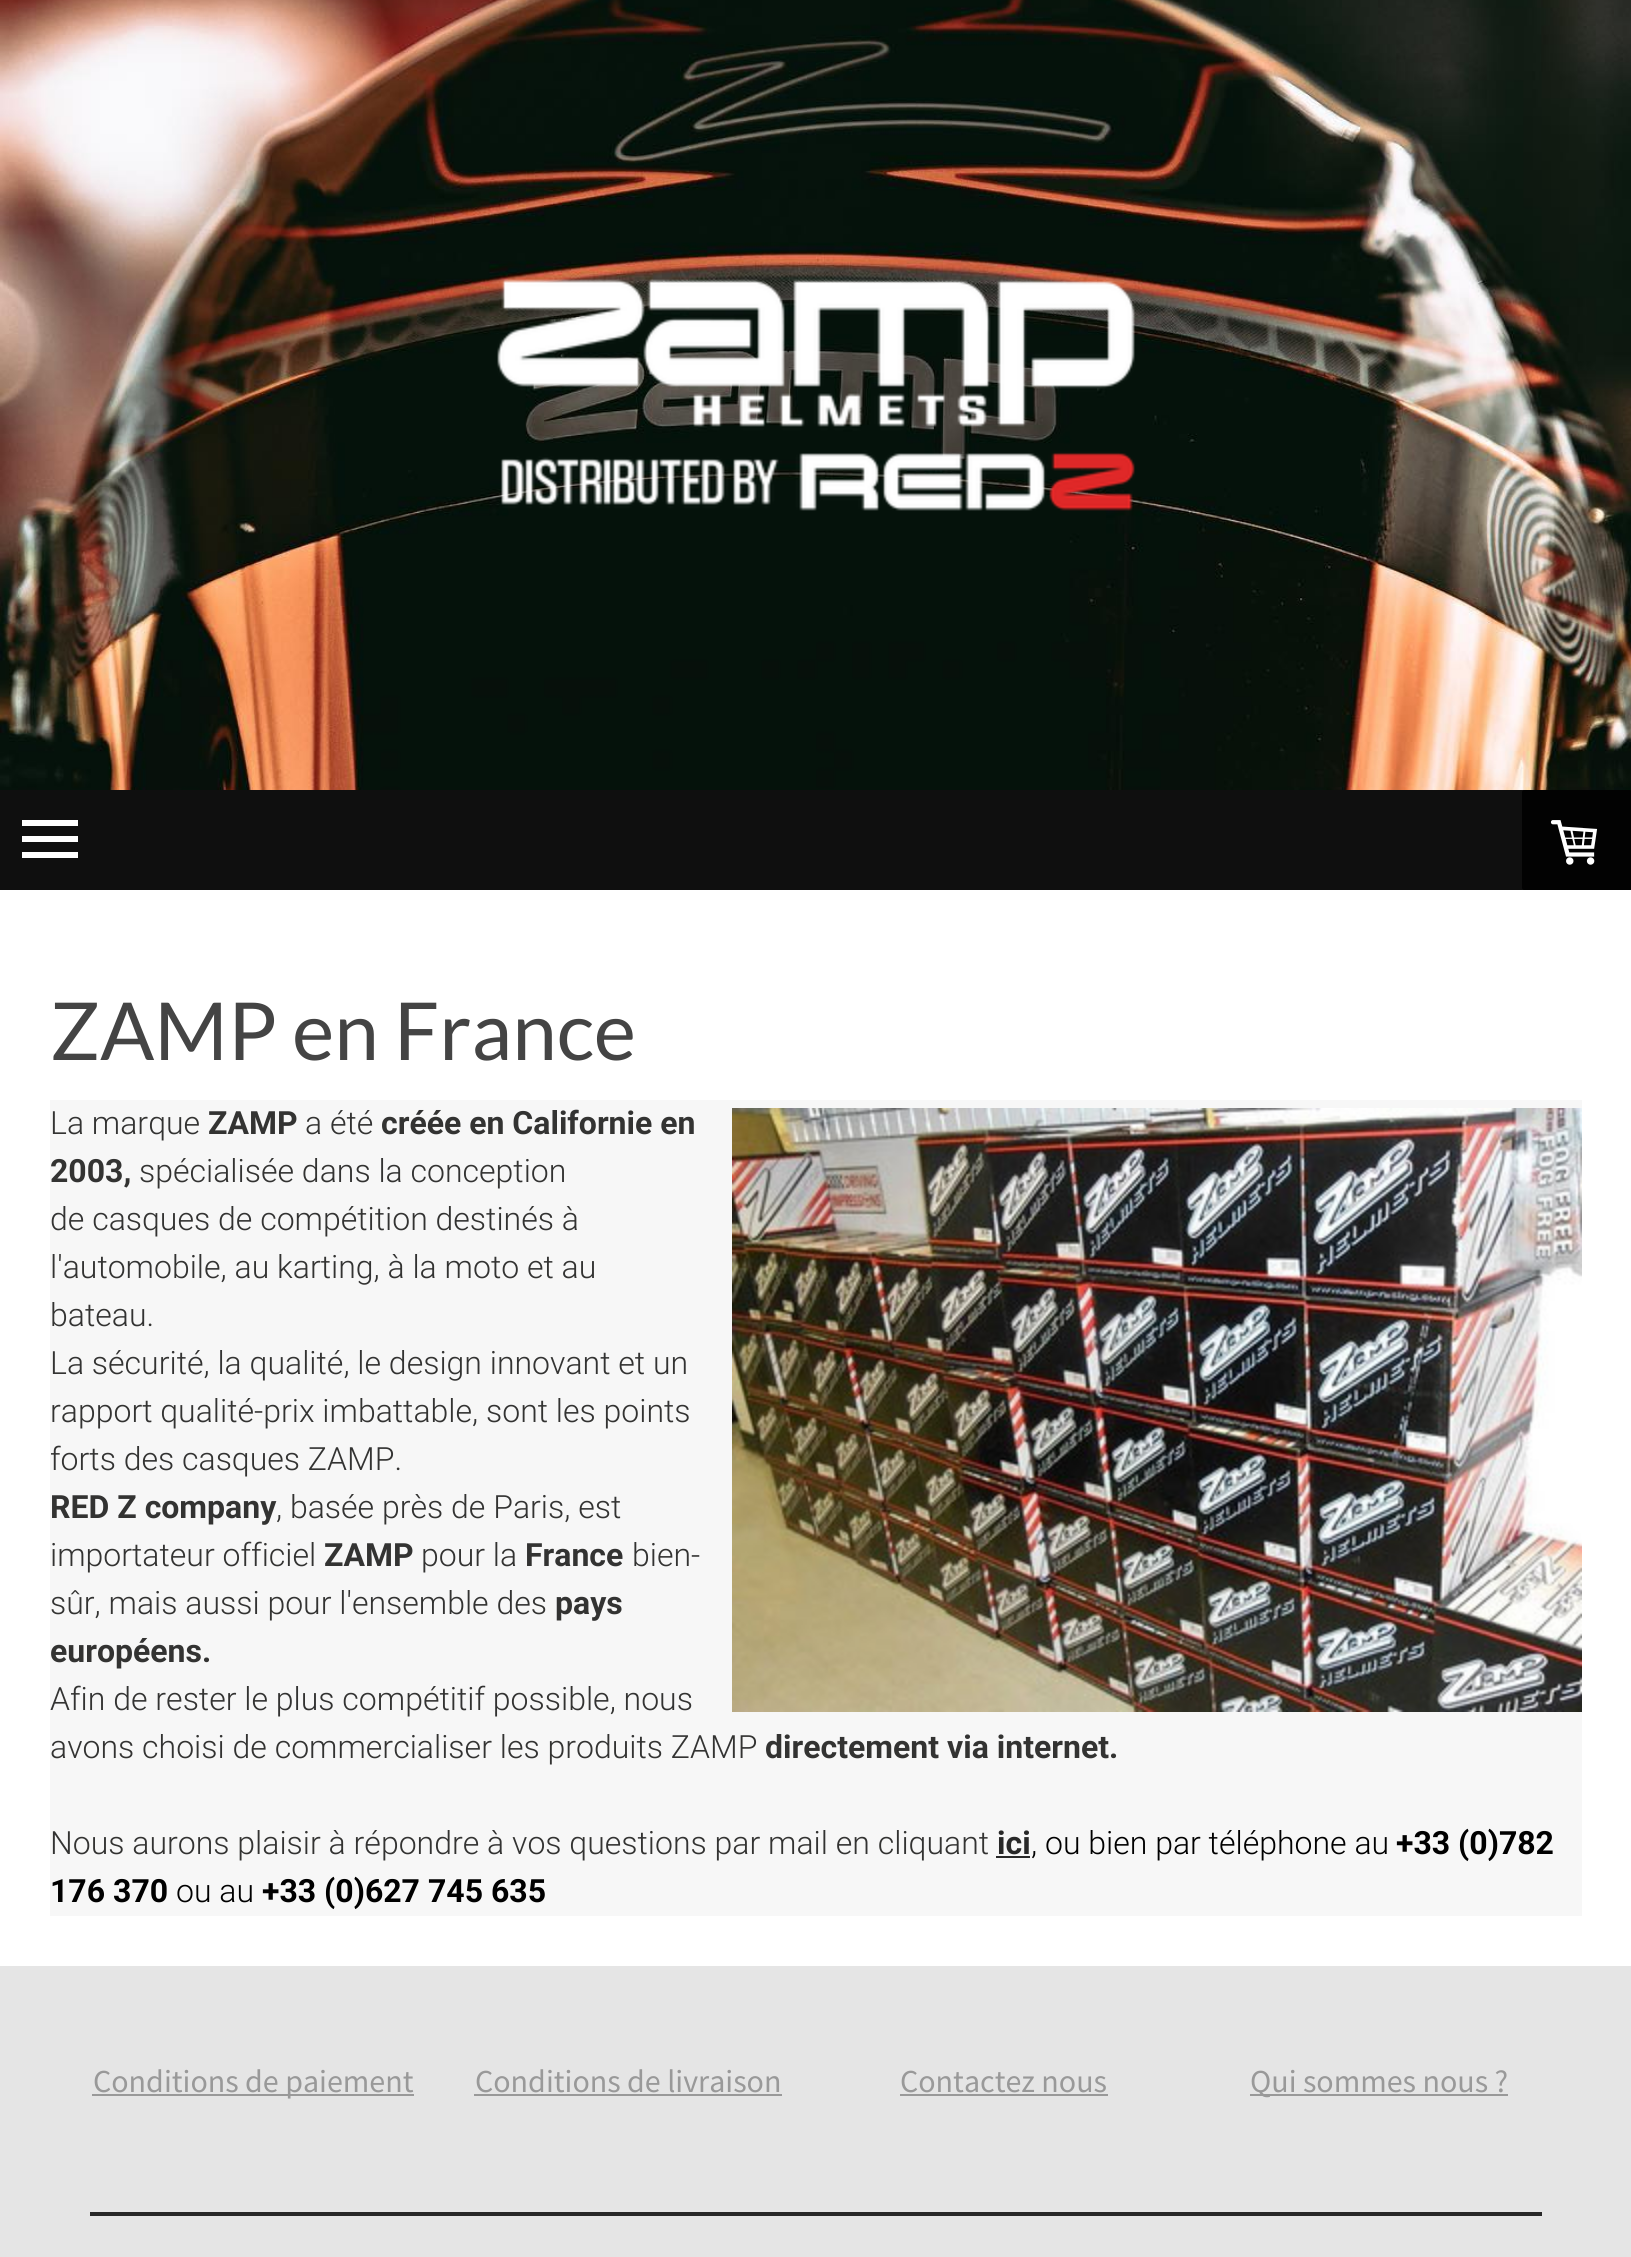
#include <cairo.h>
#include <math.h>
#include <stddef.h>


static void rgb(cairo_t *cr, int r, int g, int b)
{
	cairo_set_source_rgb(cr, r / 255.0, g / 255.0, b / 255.0);
}

static void face(cairo_t *cr, const char *family, double size, int italic, int bold)
{
	cairo_select_font_face(cr, family, italic ? CAIRO_FONT_SLANT_ITALIC : CAIRO_FONT_SLANT_NORMAL,
		bold ? CAIRO_FONT_WEIGHT_BOLD : CAIRO_FONT_WEIGHT_NORMAL);
	cairo_set_font_size(cr, size);
}

static void label(cairo_t *cr, double x, double y, const char *s)
{
	cairo_move_to(cr, x, y);
	cairo_show_text(cr, s);
}

static void rect(cairo_t *cr, double x, double y, double w, double h)
{
	cairo_rectangle(cr, x, y, w, h);
	cairo_fill(cr);
}

static void rrect(cairo_t *cr, double x, double y, double w, double h, double r)
{
	cairo_new_sub_path(cr);
	cairo_arc(cr, x + w - r, y + h - r, r, 0, M_PI / 2);
	cairo_arc(cr, x + r, y + h - r, r, M_PI / 2, M_PI);
	cairo_arc(cr, x + r, y + r, r, M_PI, 1.5 * M_PI);
	cairo_arc(cr, x + w - r, y + r, r, 1.5 * M_PI, 2 * M_PI);
	cairo_close_path(cr);
}

static void image(cairo_t *cr, const char *path, double x, double y, double w, double h)
{
	cairo_surface_t *image = cairo_image_surface_create_from_png(path);
	cairo_save(cr);
	cairo_set_source_surface(cr, image, x, y);
	cairo_rectangle(cr, x, y, w, h);
	cairo_fill(cr);
	cairo_restore(cr);
	cairo_surface_destroy(image);
}

static void draw(cairo_t *cr) {
	rgb(cr, 255, 255, 255);
	cairo_paint(cr);
	image(cr, "image0.png", 0, 0, 1631, 790);
	image(cr, "image1.png", 497, 279, 638, 232);
	rgb(cr, 15, 15, 15);
	rect(cr, 0, 790, 1631, 100);
	rgb(cr, 255, 255, 255);
	rect(cr, 22, 836, 56, 6);
	rect(cr, 22, 820, 56, 6);
	rect(cr, 22, 852, 56, 6);
	rgb(cr, 2, 2, 2);
	rrect(cr, 1522, 790, 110, 100, 2);
	cairo_fill(cr);
	image(cr, "image2.png", 1550, 820, 48, 45);
	face(cr, "Lato", 80, 0, 0);
	rgb(cr, 68, 68, 68);
	label(cr, 50, 1060, "ZAMP en France");
	rgb(cr, 247, 247, 247);
	rect(cr, 50, 1100, 1532, 240);
	rect(cr, 50, 1676, 1532, 240);
	image(cr, "image3.png", 732, 1108, 850, 604);
	face(cr, "Roboto Light", 32, 0, 0);
	rgb(cr, 51, 51, 50);
	label(cr, 50, 1134, "La marque");
	face(cr, "Roboto", 32, 0, 1);
	label(cr, 208, 1134, "ZAMP");
	face(cr, "Roboto Light", 32, 0, 0);
	label(cr, 305, 1134, "a été");
	face(cr, "Roboto", 32, 0, 1);
	label(cr, 381, 1134, "créée en Californie en");
	label(cr, 50, 1182, "2003,");
	face(cr, "Roboto Light", 32, 0, 0);
	label(cr, 139, 1182, "spécialisée dans la conception");
	label(cr, 50, 1230, "de casques de compétition destinés à");
	label(cr, 50, 1278, "l'automobile, au karting, à la moto et au");
	label(cr, 50, 1326, "bateau.");
	rgb(cr, 247, 247, 247);
	rect(cr, 50, 1340, 682, 336);
	rgb(cr, 51, 51, 50);
	label(cr, 50, 1374, "La sécurité, la qualité, le design innovant et un");
	label(cr, 50, 1422, "rapport qualité-prix imbattable, sont les points");
	label(cr, 50, 1470, "forts des casques ZAMP.");
	face(cr, "Roboto", 32, 0, 1);
	label(cr, 50, 1518, "RED Z company");
	face(cr, "Roboto Light", 32, 0, 0);
	label(cr, 276, 1518, ", basée près de Paris, est");
	label(cr, 50, 1566, "importateur officiel");
	face(cr, "Roboto", 32, 0, 1);
	label(cr, 324, 1566, "ZAMP");
	face(cr, "Roboto Light", 32, 0, 0);
	label(cr, 421, 1566, "pour la");
	face(cr, "Roboto", 32, 0, 1);
	label(cr, 525, 1566, "France");
	face(cr, "Roboto Light", 32, 0, 0);
	label(cr, 632, 1566, "bien-");
	label(cr, 50, 1614, "sûr, mais aussi pour l'ensemble des");
	face(cr, "Roboto", 32, 0, 1);
	label(cr, 555, 1614, "pays");
	label(cr, 50, 1662, "européens.");
	face(cr, "Roboto Light", 32, 0, 0);
	label(cr, 50, 1710, "Afin de rester le plus compétitif possible, nous");
	label(cr, 50, 1758, "avons choisi de commercialiser les produits ZAMP");
	face(cr, "Roboto", 32, 0, 1);
	label(cr, 765, 1758, "directement via internet.");
	face(cr, "Roboto Light", 32, 0, 0);
	label(cr, 50, 1854, "Nous aurons plaisir à répondre à vos questions par mail en cliquant");
	face(cr, "Roboto", 32, 0, 1);
	rgb(cr, 40, 40, 40);
	label(cr, 997, 1854, "ici");
	rect(cr, 996, 1856, 34, 2);
	face(cr, "Roboto Light", 32, 0, 0);
	rgb(cr, 0, 0, 0);
	label(cr, 1031, 1854, ", ou bien par téléphone au");
	face(cr, "Roboto", 32, 0, 1);
	label(cr, 1396, 1854, "+33 (0)782");
	label(cr, 50, 1902, "176 370");
	face(cr, "Roboto Light", 32, 0, 0);
	label(cr, 176, 1902, "ou au");
	face(cr, "Roboto", 32, 0, 1);
	label(cr, 262, 1902, "+33 (0)627 745 635");
	rgb(cr, 229, 229, 229);
	rect(cr, 0, 1966, 1631, 291);
	rgb(cr, 153, 153, 153);
	rect(cr, 92, 2094, 322, 2);
	face(cr, "Source Sans Pro", 32, 0, 0);
	label(cr, 93, 2092, "Conditions de paiement");
	label(cr, 475, 2092, "Conditions de livraison");
	rect(cr, 474, 2094, 308, 2);
	label(cr, 900, 2092, "Contactez nous");
	rect(cr, 900, 2094, 208, 2);
	rect(cr, 1250, 2094, 258, 2);
	label(cr, 1250, 2092, "Qui sommes nous ?");
	rgb(cr, 40, 40, 40);
	rect(cr, 90, 2212, 1452, 4);
}

int main(void) {
	cairo_surface_t *surface = cairo_image_surface_create(CAIRO_FORMAT_RGB24, 1631, 2257);
	cairo_t *cr = cairo_create(surface);
	cairo_font_options_t *options = cairo_font_options_create();
	cairo_font_options_set_hint_metrics(options, CAIRO_HINT_METRICS_OFF);
	cairo_font_options_set_hint_style(options, CAIRO_HINT_STYLE_NONE);
	cairo_set_font_options(cr, options);
	cairo_set_miter_limit(cr, 4);
	draw(cr);
	cairo_surface_write_to_png(surface, "render.png");
	cairo_font_options_destroy(options);
	cairo_destroy(cr);
	cairo_surface_destroy(surface);
	return 0;
}
